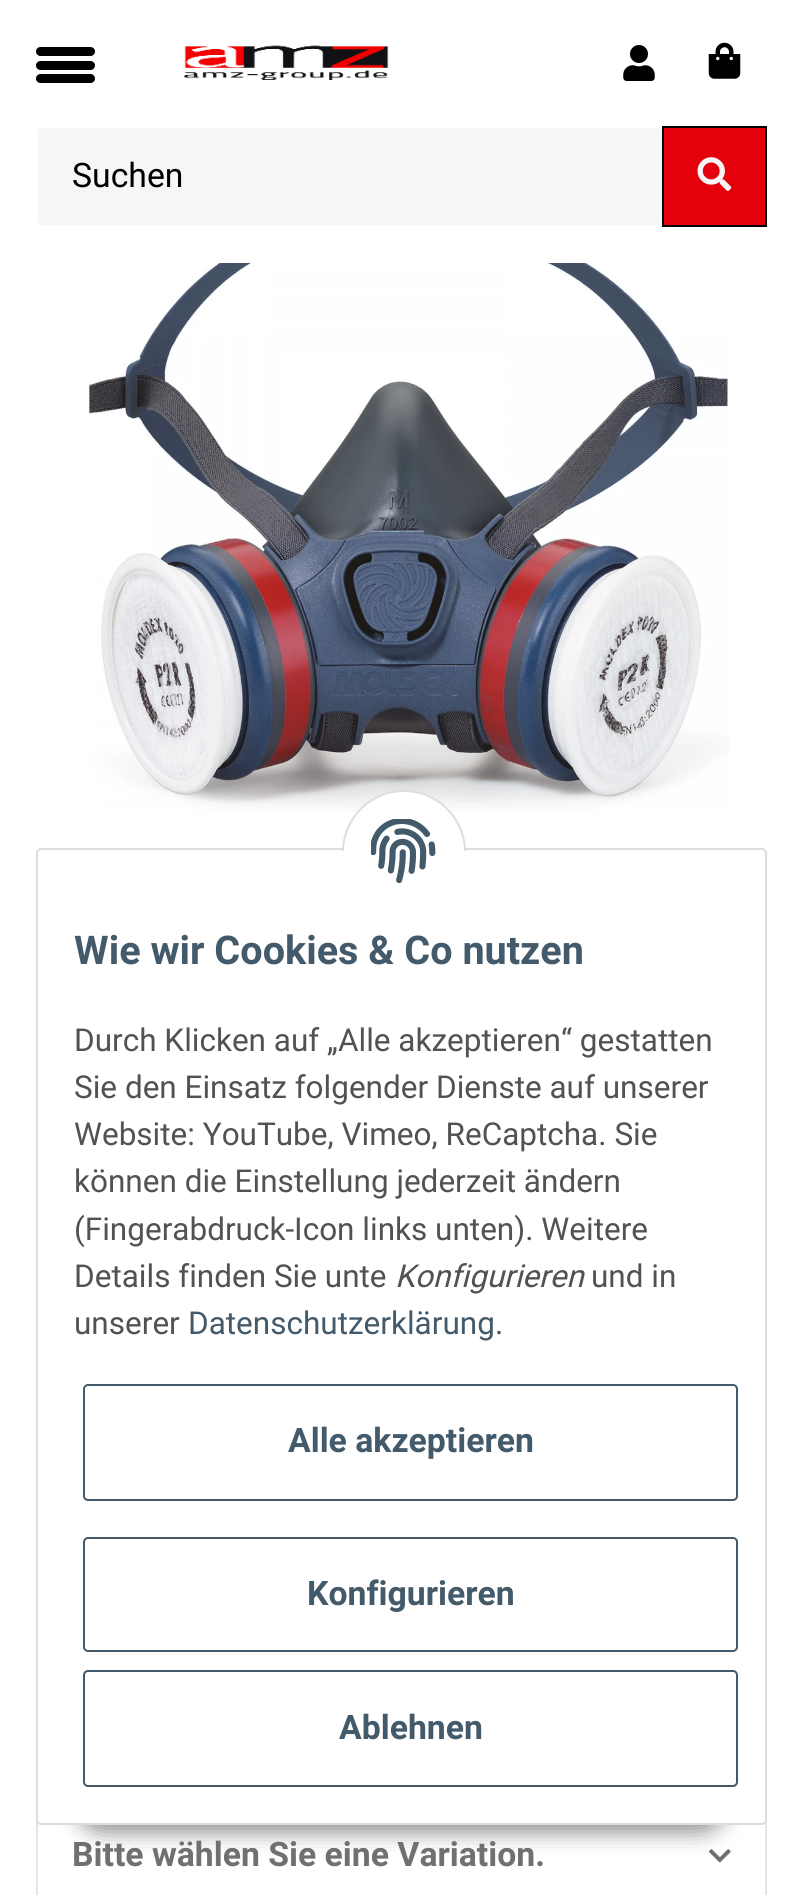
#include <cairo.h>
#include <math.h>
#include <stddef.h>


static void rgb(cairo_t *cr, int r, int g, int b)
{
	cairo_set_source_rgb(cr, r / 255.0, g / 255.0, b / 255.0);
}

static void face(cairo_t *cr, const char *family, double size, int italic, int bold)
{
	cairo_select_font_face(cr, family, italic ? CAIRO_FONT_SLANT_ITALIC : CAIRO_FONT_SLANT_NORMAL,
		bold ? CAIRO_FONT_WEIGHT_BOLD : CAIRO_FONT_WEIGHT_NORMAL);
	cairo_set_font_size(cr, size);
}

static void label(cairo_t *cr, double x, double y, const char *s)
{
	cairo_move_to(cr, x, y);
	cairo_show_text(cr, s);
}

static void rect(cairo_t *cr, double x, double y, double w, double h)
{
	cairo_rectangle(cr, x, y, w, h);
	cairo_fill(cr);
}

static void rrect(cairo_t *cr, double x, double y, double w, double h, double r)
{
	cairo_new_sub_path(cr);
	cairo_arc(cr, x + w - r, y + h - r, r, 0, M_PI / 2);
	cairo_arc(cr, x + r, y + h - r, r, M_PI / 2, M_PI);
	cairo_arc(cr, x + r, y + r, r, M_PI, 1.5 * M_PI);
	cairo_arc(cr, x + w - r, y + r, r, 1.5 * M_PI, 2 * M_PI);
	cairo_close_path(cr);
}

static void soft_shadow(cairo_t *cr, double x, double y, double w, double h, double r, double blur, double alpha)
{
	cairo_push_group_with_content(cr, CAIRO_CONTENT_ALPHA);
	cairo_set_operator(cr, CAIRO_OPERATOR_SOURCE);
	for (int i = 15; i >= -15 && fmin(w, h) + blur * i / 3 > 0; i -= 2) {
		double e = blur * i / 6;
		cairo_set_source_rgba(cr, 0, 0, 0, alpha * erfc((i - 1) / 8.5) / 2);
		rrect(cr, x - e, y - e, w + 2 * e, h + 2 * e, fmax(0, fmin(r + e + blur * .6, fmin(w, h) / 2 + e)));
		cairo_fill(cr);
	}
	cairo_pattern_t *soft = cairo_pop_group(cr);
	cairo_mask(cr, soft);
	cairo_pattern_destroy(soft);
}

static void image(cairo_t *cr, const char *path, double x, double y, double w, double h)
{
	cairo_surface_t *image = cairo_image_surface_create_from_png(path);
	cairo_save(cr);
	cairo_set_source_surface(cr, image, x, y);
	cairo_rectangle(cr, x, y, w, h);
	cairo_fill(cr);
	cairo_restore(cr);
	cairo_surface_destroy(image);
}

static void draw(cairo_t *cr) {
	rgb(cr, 255, 255, 255);
	cairo_paint(cr);
	rgb(cr, 0, 0, 0);
	rrect(cr, 36, 61, 59, 9, 4.5);
	cairo_fill(cr);
	rrect(cr, 36, 47, 59, 9, 4.5);
	cairo_fill(cr);
	rrect(cr, 36, 74, 59, 9, 4.5);
	cairo_fill(cr);
	image(cr, "image0.png", 183, 45, 206, 35);
	image(cr, "image1.png", 623, 45, 32, 36);
	image(cr, "image2.png", 708, 42, 33, 37);
	rgb(cr, 246, 246, 246);
	rrect(cr, 38, 128, 624, 97, 2);
	cairo_fill(cr);
	rrect(cr, 37, 127, 626, 99, 4);
	rgb(cr, 255, 255, 255);
	cairo_stroke(cr);
	face(cr, "Roboto", 33.75, 0, 0);
	rgb(cr, 0, 0, 0);
	label(cr, 72, 187, "Suchen");
	rgb(cr, 228, 1, 11);
	cairo_rectangle(cr, 663, 127, 103, 99);
	cairo_fill_preserve(cr);
	rgb(cr, 0, 0, 0);
	cairo_stroke(cr);
	image(cr, "image3.png", 697, 157, 35, 34);
	cairo_rectangle(cr, 37, 1806, 729, 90);
	rgb(cr, 229, 229, 229);
	cairo_stroke(cr);
	image(cr, "image6.png", 709, 1849, 22, 14);
	rgb(cr, 0, 0, 0);
	soft_shadow(cr, 74, 1760, 655, 72, 36, 11, 0.45);
	rgb(cr, 255, 255, 255);
	rrect(cr, 37, 849, 729, 975, 4);
	cairo_fill_preserve(cr);
	rgb(cr, 221, 221, 221);
	cairo_stroke(cr);
	image(cr, "image5.png", 88, 263, 642, 549);
	rgb(cr, 255, 255, 255);
	cairo_arc(cr, 404, 852, 61, 0, 2 * M_PI);
	cairo_fill_preserve(cr);
	rgb(cr, 221, 221, 221);
	cairo_stroke(cr);
	rgb(cr, 255, 255, 255);
	rect(cr, 342, 851, 124, 63);
	image(cr, "image4.png", 371, 819, 65, 65);
	face(cr, "Roboto", 39.6, 0, 1);
	rgb(cr, 67, 90, 107);
	label(cr, 74, 964, "Wie wir Cookies & Co nutzen");
	face(cr, "Roboto", 31.5, 0, 0);
	rgb(cr, 82, 82, 82);
	label(cr, 74, 1051, "Durch Klicken auf „Alle akzeptieren“ gestatten");
	label(cr, 74, 1098, "Sie den Einsatz folgender Dienste auf unserer");
	label(cr, 74, 1145, "Website: YouTube, Vimeo, ReCaptcha. Sie");
	label(cr, 74, 1192, "können die Einstellung jederzeit ändern");
	label(cr, 74, 1240, "(Fingerabdruck-Icon links unten). Weitere");
	label(cr, 74, 1287, "Details finden Sie unte");
	face(cr, "Roboto", 31.5, 1, 0);
	label(cr, 395, 1287, "Konfigurieren");
	face(cr, "Roboto", 31.5, 0, 0);
	label(cr, 591, 1287, "und in");
	label(cr, 74, 1334, "unserer");
	rgb(cr, 67, 90, 107);
	label(cr, 188, 1334, "Datenschutzerklärung");
	rgb(cr, 82, 82, 82);
	label(cr, 495, 1334, ".");
	rrect(cr, 84, 1385, 653, 115, 4);
	rgb(cr, 67, 90, 107);
	cairo_stroke(cr);
	face(cr, "Roboto", 33.75, 0, 1);
	label(cr, 288, 1452, "Alle akzeptieren");
	rrect(cr, 84, 1538, 653, 113, 4);
	cairo_stroke(cr);
	label(cr, 307, 1605, "Konfigurieren");
	rrect(cr, 84, 1671, 653, 115, 4);
	cairo_stroke(cr);
	label(cr, 339, 1739, "Ablehnen");
	rgb(cr, 112, 112, 112);
	label(cr, 72, 1866, "Bitte wählen Sie eine Variation.");
}

int main(void) {
	cairo_surface_t *surface = cairo_image_surface_create(CAIRO_FORMAT_RGB24, 803, 1895);
	cairo_t *cr = cairo_create(surface);
	cairo_font_options_t *options = cairo_font_options_create();
	cairo_font_options_set_hint_metrics(options, CAIRO_HINT_METRICS_OFF);
	cairo_font_options_set_hint_style(options, CAIRO_HINT_STYLE_NONE);
	cairo_set_font_options(cr, options);
	cairo_set_miter_limit(cr, 4);
	draw(cr);
	cairo_surface_write_to_png(surface, "render.png");
	cairo_font_options_destroy(options);
	cairo_destroy(cr);
	cairo_surface_destroy(surface);
	return 0;
}
